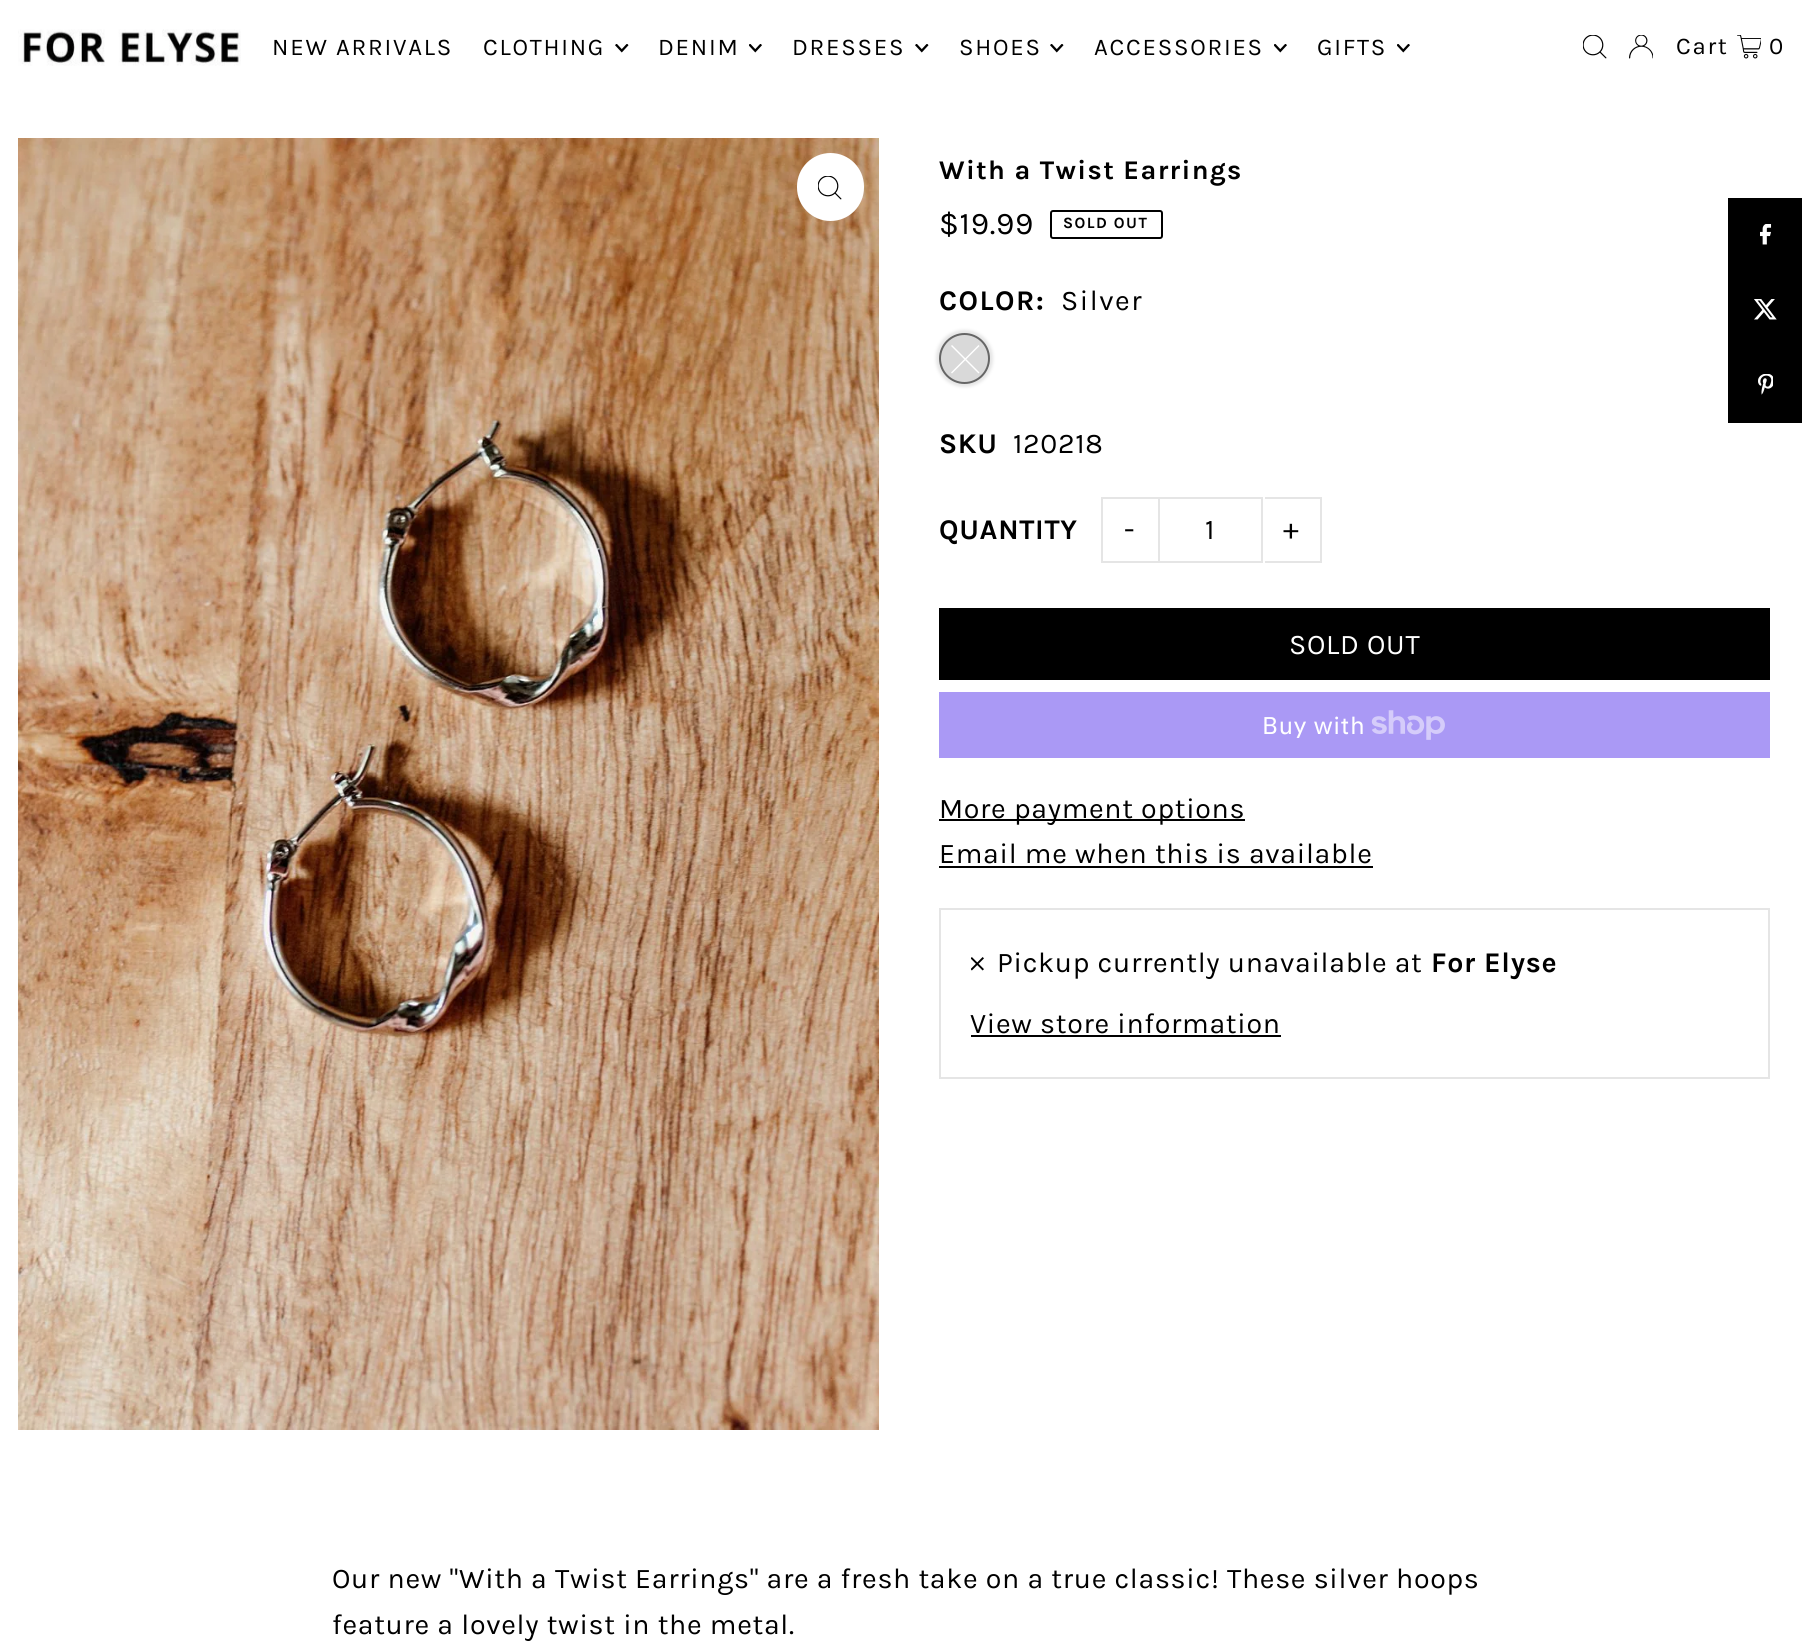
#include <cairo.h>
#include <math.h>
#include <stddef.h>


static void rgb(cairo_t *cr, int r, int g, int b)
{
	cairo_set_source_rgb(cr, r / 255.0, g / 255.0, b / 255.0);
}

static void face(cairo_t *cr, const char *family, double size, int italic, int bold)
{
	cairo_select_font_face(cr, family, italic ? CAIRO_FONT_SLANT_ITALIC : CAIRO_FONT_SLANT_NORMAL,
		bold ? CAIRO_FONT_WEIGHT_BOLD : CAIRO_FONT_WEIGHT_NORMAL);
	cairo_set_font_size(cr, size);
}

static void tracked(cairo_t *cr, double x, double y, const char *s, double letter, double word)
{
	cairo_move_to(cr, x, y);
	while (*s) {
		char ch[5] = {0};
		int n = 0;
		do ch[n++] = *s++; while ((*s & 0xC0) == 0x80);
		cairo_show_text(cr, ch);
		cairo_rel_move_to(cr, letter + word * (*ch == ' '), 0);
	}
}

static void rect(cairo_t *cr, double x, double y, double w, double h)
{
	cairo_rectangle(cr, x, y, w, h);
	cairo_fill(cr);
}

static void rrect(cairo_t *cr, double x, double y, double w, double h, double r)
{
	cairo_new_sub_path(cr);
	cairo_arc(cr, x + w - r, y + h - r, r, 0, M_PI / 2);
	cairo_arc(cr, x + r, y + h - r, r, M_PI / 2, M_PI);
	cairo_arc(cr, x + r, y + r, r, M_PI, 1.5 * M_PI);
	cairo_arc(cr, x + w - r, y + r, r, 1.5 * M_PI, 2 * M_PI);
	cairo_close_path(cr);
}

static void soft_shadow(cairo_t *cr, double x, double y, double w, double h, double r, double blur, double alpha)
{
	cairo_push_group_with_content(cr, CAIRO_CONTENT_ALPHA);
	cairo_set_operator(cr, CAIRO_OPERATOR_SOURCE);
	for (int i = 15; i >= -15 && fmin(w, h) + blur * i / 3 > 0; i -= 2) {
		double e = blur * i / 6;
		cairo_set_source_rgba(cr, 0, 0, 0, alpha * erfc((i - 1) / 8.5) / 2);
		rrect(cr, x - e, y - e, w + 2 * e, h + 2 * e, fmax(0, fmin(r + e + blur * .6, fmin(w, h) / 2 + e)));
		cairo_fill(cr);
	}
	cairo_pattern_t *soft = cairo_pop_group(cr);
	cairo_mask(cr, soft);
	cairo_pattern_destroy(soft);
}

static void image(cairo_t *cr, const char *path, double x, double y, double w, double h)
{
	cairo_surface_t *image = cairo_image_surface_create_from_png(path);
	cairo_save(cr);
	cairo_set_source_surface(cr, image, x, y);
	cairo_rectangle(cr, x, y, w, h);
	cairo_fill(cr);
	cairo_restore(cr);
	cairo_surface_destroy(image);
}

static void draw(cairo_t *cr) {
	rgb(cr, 255, 255, 255);
	cairo_paint(cr);
	image(cr, "image0.png", 18, 29, 223, 37);
	face(cr, "Karla", 24, 0, 0);
	rgb(cr, 0, 0, 0);
	tracked(cr, 272, 55, "NEW ARRIVALS", 1.75, 0);
	tracked(cr, 483, 55, "CLOTHING", 1.75, 0);
	image(cr, "image1.png", 615, 44, 14, 9);
	tracked(cr, 658, 55, "DENIM", 1.75, 0);
	image(cr, "image2.png", 749, 44, 13, 9);
	tracked(cr, 792, 55, "DRESSES", 1.75, 0);
	image(cr, "image1.png", 915, 44, 14, 9);
	tracked(cr, 959, 55, "SHOES", 1.75, 0);
	image(cr, "image1.png", 1050, 44, 14, 9);
	tracked(cr, 1094, 55, "ACCESSORIES", 1.75, 0);
	image(cr, "image2.png", 1274, 44, 13, 9);
	tracked(cr, 1317, 55, "GIFTS", 1.75, 0);
	image(cr, "image2.png", 1397, 44, 13, 9);
	image(cr, "image3.png", 1583, 35, 24, 24);
	image(cr, "image4.png", 1629, 35, 24, 24);
	tracked(cr, 1676, 54, "Cart", 1.75, 0);
	image(cr, "image5.png", 1737, 35, 24, 24);
	tracked(cr, 1769, 54, "0", 1.75, 0);
	image(cr, "image6.png", 18, 138, 861, 1292);
	rgb(cr, 255, 255, 255);
	rrect(cr, 797, 153, 67, 68, 33.5);
	cairo_fill(cr);
	image(cr, "image3.png", 818, 176, 24, 24);
	face(cr, "Karla", 27, 0, 1);
	rgb(cr, 0, 0, 0);
	tracked(cr, 939, 179, "With a Twist Earrings", 1.35, 0);
	face(cr, "Karla", 31.5, 0, 0);
	tracked(cr, 939, 234, "$19.99", 0.7, 0);
	rrect(cr, 1051, 211, 111, 27, 2);
	cairo_stroke(cr);
	face(cr, "Karla", 15.75, 0, 1);
	tracked(cr, 1063, 228, "SOLD OUT", 1.5, 0);
	face(cr, "Karla", 28.5, 0, 1);
	tracked(cr, 939, 310, "COLOR:", 1.5, 0);
	face(cr, "Karla", 28.5, 0, 0);
	tracked(cr, 1061, 310, "Silver", 1.5, 0);
	rgb(cr, 230, 230, 230);
	soft_shadow(cr, 936, 330, 57, 57, 28.5, 1.5, 1);
	rgb(cr, 217, 217, 217);
	cairo_arc(cr, 964.5, 358.5, 24.5, 0, 2 * M_PI);
	cairo_fill_preserve(cr);
	rgb(cr, 102, 102, 102);
	cairo_stroke(cr);
	rgb(cr, 255, 255, 255);
	cairo_new_path(cr);
	cairo_move_to(cr, 978.5, 345);
	cairo_line_to(cr, 979.5, 346);
	cairo_line_to(cr, 952, 373.5);
	cairo_line_to(cr, 951, 372.5);
	cairo_close_path(cr);
	cairo_fill(cr);
	cairo_new_path(cr);
	cairo_move_to(cr, 979.5, 372.5);
	cairo_line_to(cr, 978.5, 373.5);
	cairo_line_to(cr, 951, 346);
	cairo_line_to(cr, 952, 345);
	cairo_close_path(cr);
	cairo_fill(cr);
	face(cr, "Karla", 28.5, 0, 1);
	rgb(cr, 0, 0, 0);
	tracked(cr, 939, 453, "SKU", 0.7, 0);
	face(cr, "Karla", 28.5, 0, 0);
	tracked(cr, 1013, 453, "120218", 0.7, 0);
	face(cr, "Karla", 28.5, 0, 1);
	tracked(cr, 939, 539, "QUANTITY", 0.7, 0);
	rgb(cr, 229, 229, 229);
	rect(cr, 1101, 497, 57, 2);
	rect(cr, 1101, 561, 57, 2);
	rect(cr, 1101, 497, 2, 66);
	face(cr, "Karla", 30, 0, 0);
	rgb(cr, 0, 0, 0);
	tracked(cr, 1124, 539, "-", 1, 0);
	cairo_rectangle(cr, 1159, 498, 103, 64);
	rgb(cr, 229, 229, 229);
	cairo_stroke(cr);
	face(cr, "Karla", 28.5, 0, 0);
	rgb(cr, 0, 0, 0);
	tracked(cr, 1205, 539, "1", 0.7, 0);
	rgb(cr, 229, 229, 229);
	rect(cr, 1265, 497, 57, 2);
	rect(cr, 1320, 497, 2, 66);
	rect(cr, 1265, 561, 57, 2);
	face(cr, "Karla", 30, 0, 0);
	rgb(cr, 0, 0, 0);
	tracked(cr, 1283, 539, "+", 1, 0);
	rect(cr, 939, 608, 831, 72);
	face(cr, "Karla", 28.5, 0, 0);
	rgb(cr, 255, 255, 255);
	tracked(cr, 1289, 654, "SOLD OUT", 0.7, 0);
	rgb(cr, 170, 153, 245);
	rect(cr, 939, 692, 831, 66);
	face(cr, "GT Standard", 24, 0, 0);
	rgb(cr, 255, 255, 255);
	tracked(cr, 1262, 734, "Buy with", 0.7, 0);
	image(cr, "image7.png", 1371, 710, 74, 30);
	rgb(cr, 0, 0, 0);
	rect(cr, 939, 819, 306, 2);
	face(cr, "Karla", 28.5, 0, 0);
	tracked(cr, 939, 818, "More payment options", 0.7, 0);
	tracked(cr, 939, 863, "Email me when this is available", 0.7, 0);
	rect(cr, 939, 866, 434, 2);
	cairo_rectangle(cr, 940, 909, 829, 169);
	rgb(cr, 229, 229, 229);
	cairo_stroke(cr);
	image(cr, "image8.png", 971, 957, 13, 14);
	rgb(cr, 0, 0, 0);
	tracked(cr, 997, 972, "Pickup currently unavailable at", 0.7, 0);
	face(cr, "Karla", 28.5, 0, 1);
	tracked(cr, 1431, 972, "For Elyse", 0.7, 0);
	face(cr, "Karla", 28.5, 0, 0);
	tracked(cr, 970, 1033, "View store information", 0.7, 0);
	rect(cr, 971, 1035, 310, 2);
	rect(cr, 1728, 198, 74, 225);
	image(cr, "image9.png", 1760, 224, 12, 21);
	image(cr, "image10.png", 1754, 299, 23, 21);
	image(cr, "image11.png", 1758, 374, 15, 21);
	tracked(cr, 332, 1588, "Our new \"With a Twist Earrings\" are a fresh take on a true classic! These silver hoops", 0.7, 0);
	tracked(cr, 332, 1634, "feature a lovely twist in the metal.", 0.7, 0);
}

int main(void) {
	cairo_surface_t *surface = cairo_image_surface_create(CAIRO_FORMAT_RGB24, 1802, 1643);
	cairo_t *cr = cairo_create(surface);
	cairo_font_options_t *options = cairo_font_options_create();
	cairo_font_options_set_hint_metrics(options, CAIRO_HINT_METRICS_OFF);
	cairo_font_options_set_hint_style(options, CAIRO_HINT_STYLE_NONE);
	cairo_set_font_options(cr, options);
	cairo_set_miter_limit(cr, 4);
	draw(cr);
	cairo_surface_write_to_png(surface, "render.png");
	cairo_font_options_destroy(options);
	cairo_destroy(cr);
	cairo_surface_destroy(surface);
	return 0;
}
